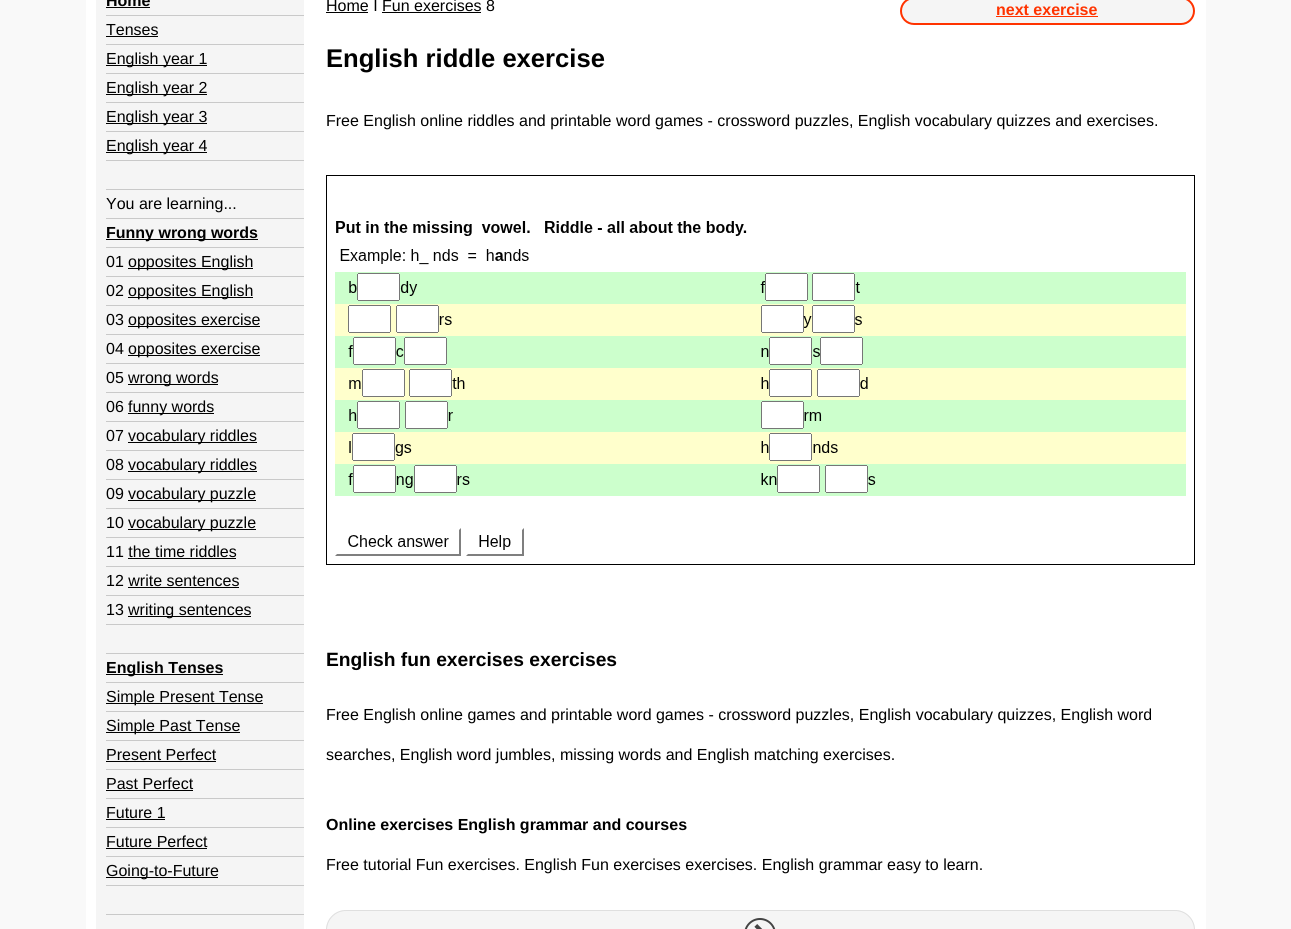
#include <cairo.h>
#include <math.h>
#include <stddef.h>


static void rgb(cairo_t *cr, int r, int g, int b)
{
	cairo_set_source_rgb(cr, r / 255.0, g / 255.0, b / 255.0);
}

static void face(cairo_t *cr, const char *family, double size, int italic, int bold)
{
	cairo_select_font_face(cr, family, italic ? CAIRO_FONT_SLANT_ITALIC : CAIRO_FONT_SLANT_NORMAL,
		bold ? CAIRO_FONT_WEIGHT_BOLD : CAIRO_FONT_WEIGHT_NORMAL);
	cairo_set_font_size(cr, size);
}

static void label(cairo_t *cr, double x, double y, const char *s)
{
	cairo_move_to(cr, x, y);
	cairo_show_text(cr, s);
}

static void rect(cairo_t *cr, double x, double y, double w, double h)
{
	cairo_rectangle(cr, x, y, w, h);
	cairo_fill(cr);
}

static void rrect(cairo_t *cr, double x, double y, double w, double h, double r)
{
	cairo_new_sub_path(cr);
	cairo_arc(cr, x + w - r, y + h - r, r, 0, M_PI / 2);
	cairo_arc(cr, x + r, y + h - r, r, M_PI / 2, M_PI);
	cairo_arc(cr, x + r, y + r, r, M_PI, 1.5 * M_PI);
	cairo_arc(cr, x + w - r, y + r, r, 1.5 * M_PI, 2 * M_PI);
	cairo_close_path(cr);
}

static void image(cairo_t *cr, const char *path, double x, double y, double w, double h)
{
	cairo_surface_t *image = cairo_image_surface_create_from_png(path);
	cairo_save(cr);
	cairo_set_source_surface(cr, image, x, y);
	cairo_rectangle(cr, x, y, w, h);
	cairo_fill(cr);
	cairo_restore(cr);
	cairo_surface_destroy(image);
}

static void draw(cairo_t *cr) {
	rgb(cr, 249, 249, 249);
	cairo_paint(cr);
	rgb(cr, 255, 255, 255);
	rect(cr, 86, 0, 1120, 929);
	rgb(cr, 245, 245, 245);
	rect(cr, 96, 0, 208, 929);
	rgb(cr, 201, 201, 201);
	rect(cr, 106, 15, 198, 1);
	face(cr, "Liberation Sans", 16, 0, 1);
	rgb(cr, 0, 0, 0);
	label(cr, 106, 6, "Home");
	rect(cr, 106, 7, 44, 1);
	rgb(cr, 201, 201, 201);
	rect(cr, 106, 44, 198, 1);
	face(cr, "Liberation Sans", 16, 0, 0);
	rgb(cr, 0, 0, 0);
	label(cr, 106, 35, "Tenses");
	rect(cr, 106, 36, 52, 1);
	rgb(cr, 201, 201, 201);
	rect(cr, 106, 73, 198, 1);
	rgb(cr, 0, 0, 0);
	rect(cr, 106, 65, 101, 1);
	label(cr, 106, 64, "English year 1");
	rgb(cr, 201, 201, 201);
	rect(cr, 106, 102, 198, 1);
	rgb(cr, 0, 0, 0);
	rect(cr, 106, 94, 101, 1);
	label(cr, 106, 93, "English year 2");
	rgb(cr, 201, 201, 201);
	rect(cr, 106, 131, 198, 1);
	rgb(cr, 0, 0, 0);
	rect(cr, 106, 123, 101, 1);
	label(cr, 106, 122, "English year 3");
	rgb(cr, 201, 201, 201);
	rect(cr, 106, 160, 198, 1);
	rgb(cr, 0, 0, 0);
	rect(cr, 106, 152, 101, 1);
	label(cr, 106, 151, "English year 4");
	rgb(cr, 201, 201, 201);
	rect(cr, 106, 189, 198, 1);
	rect(cr, 106, 218, 198, 1);
	rgb(cr, 0, 0, 0);
	label(cr, 106, 209, "You are learning...");
	rgb(cr, 201, 201, 201);
	rect(cr, 106, 247, 198, 1);
	rgb(cr, 0, 0, 0);
	rect(cr, 106, 239, 152, 1);
	face(cr, "Liberation Sans", 16, 0, 1);
	label(cr, 106, 238, "Funny wrong words");
	rgb(cr, 201, 201, 201);
	rect(cr, 106, 276, 198, 1);
	face(cr, "Liberation Sans", 16, 0, 0);
	rgb(cr, 0, 0, 0);
	label(cr, 106, 267, "01");
	rect(cr, 128, 268, 125, 1);
	label(cr, 128, 267, "opposites English");
	rgb(cr, 201, 201, 201);
	rect(cr, 106, 305, 198, 1);
	rgb(cr, 0, 0, 0);
	label(cr, 106, 296, "02");
	rect(cr, 128, 297, 125, 1);
	label(cr, 128, 296, "opposites English");
	rgb(cr, 201, 201, 201);
	rect(cr, 106, 334, 198, 1);
	rgb(cr, 0, 0, 0);
	label(cr, 106, 325, "03");
	rect(cr, 128, 326, 132, 1);
	label(cr, 128, 325, "opposites exercise");
	rgb(cr, 201, 201, 201);
	rect(cr, 106, 363, 198, 1);
	rgb(cr, 0, 0, 0);
	label(cr, 106, 354, "04");
	rect(cr, 128, 355, 132, 1);
	label(cr, 128, 354, "opposites exercise");
	rgb(cr, 201, 201, 201);
	rect(cr, 106, 392, 198, 1);
	rgb(cr, 0, 0, 0);
	label(cr, 106, 383, "05");
	rect(cr, 128, 384, 90, 1);
	label(cr, 128, 383, "wrong words");
	rgb(cr, 201, 201, 201);
	rect(cr, 106, 421, 198, 1);
	rgb(cr, 0, 0, 0);
	label(cr, 106, 412, "06");
	rect(cr, 128, 413, 86, 1);
	label(cr, 128, 412, "funny words");
	rgb(cr, 201, 201, 201);
	rect(cr, 106, 450, 198, 1);
	rgb(cr, 0, 0, 0);
	label(cr, 106, 441, "07");
	rect(cr, 128, 442, 129, 1);
	label(cr, 128, 441, "vocabulary riddles");
	rgb(cr, 201, 201, 201);
	rect(cr, 106, 479, 198, 1);
	rgb(cr, 0, 0, 0);
	label(cr, 106, 470, "08");
	rect(cr, 128, 471, 129, 1);
	label(cr, 128, 470, "vocabulary riddles");
	rgb(cr, 201, 201, 201);
	rect(cr, 106, 508, 198, 1);
	rgb(cr, 0, 0, 0);
	label(cr, 106, 499, "09");
	rect(cr, 128, 500, 128, 1);
	label(cr, 128, 499, "vocabulary puzzle");
	rgb(cr, 201, 201, 201);
	rect(cr, 106, 537, 198, 1);
	rgb(cr, 0, 0, 0);
	label(cr, 106, 528, "10");
	rect(cr, 128, 529, 128, 1);
	label(cr, 128, 528, "vocabulary puzzle");
	rgb(cr, 201, 201, 201);
	rect(cr, 106, 566, 198, 1);
	rgb(cr, 0, 0, 0);
	label(cr, 106, 557, "11 the time riddles");
	rect(cr, 128, 558, 108, 1);
	rgb(cr, 201, 201, 201);
	rect(cr, 106, 595, 198, 1);
	rgb(cr, 0, 0, 0);
	label(cr, 106, 586, "12 write sentences");
	rect(cr, 128, 587, 111, 1);
	rgb(cr, 201, 201, 201);
	rect(cr, 106, 624, 198, 1);
	rgb(cr, 0, 0, 0);
	label(cr, 106, 615, "13");
	rect(cr, 128, 616, 123, 1);
	label(cr, 128, 615, "writing sentences");
	rgb(cr, 201, 201, 201);
	rect(cr, 106, 653, 198, 1);
	rect(cr, 106, 682, 198, 1);
	rgb(cr, 0, 0, 0);
	rect(cr, 106, 674, 117, 1);
	face(cr, "Liberation Sans", 16, 0, 1);
	label(cr, 106, 673, "English Tenses");
	rgb(cr, 201, 201, 201);
	rect(cr, 106, 711, 198, 1);
	rgb(cr, 0, 0, 0);
	rect(cr, 106, 703, 157, 1);
	face(cr, "Liberation Sans", 16, 0, 0);
	label(cr, 106, 702, "Simple Present Tense");
	rgb(cr, 201, 201, 201);
	rect(cr, 106, 740, 198, 1);
	rgb(cr, 0, 0, 0);
	rect(cr, 106, 732, 134, 1);
	label(cr, 106, 731, "Simple Past Tense");
	rgb(cr, 201, 201, 201);
	rect(cr, 106, 769, 198, 1);
	rgb(cr, 0, 0, 0);
	label(cr, 106, 760, "Present Perfect");
	rect(cr, 106, 761, 110, 1);
	rgb(cr, 201, 201, 201);
	rect(cr, 106, 798, 198, 1);
	rgb(cr, 0, 0, 0);
	label(cr, 106, 789, "Past Perfect");
	rect(cr, 106, 790, 87, 1);
	rgb(cr, 201, 201, 201);
	rect(cr, 106, 827, 198, 1);
	rgb(cr, 0, 0, 0);
	label(cr, 106, 818, "Future 1");
	rect(cr, 106, 819, 59, 1);
	rgb(cr, 201, 201, 201);
	rect(cr, 106, 856, 198, 1);
	rgb(cr, 0, 0, 0);
	label(cr, 106, 847, "Future Perfect");
	rect(cr, 106, 848, 101, 1);
	rgb(cr, 201, 201, 201);
	rect(cr, 106, 885, 198, 1);
	rgb(cr, 0, 0, 0);
	rect(cr, 106, 877, 112, 1);
	label(cr, 106, 876, "Going-to-Future");
	rgb(cr, 201, 201, 201);
	rect(cr, 106, 914, 198, 1);
	rgb(cr, 0, 0, 0);
	label(cr, 326, 11, "Home I Fun exercises 8");
	rect(cr, 326, 12, 42, 1);
	rect(cr, 382, 12, 99, 1);
	rgb(cr, 245, 245, 245);
	rrect(cr, 901, -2, 293, 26, 13);
	cairo_fill_preserve(cr);
	rgb(cr, 255, 51, 0);
	cairo_stroke(cr);
	face(cr, "Liberation Sans", 16, 0, 1);
	label(cr, 996, 15, "next exercise");
	rect(cr, 996, 16, 102, 1);
	face(cr, "Liberation Sans", 25.6, 0, 1);
	rgb(cr, 0, 0, 0);
	label(cr, 326, 67, "English riddle exercise");
	face(cr, "Liberation Sans", 16, 0, 0);
	label(cr, 326, 126, "Free English online riddles and printable word games - crossword puzzles, English vocabulary quizzes and exercises.");
	image(cr, "image0.png", 326, 175, 869, 390);
	face(cr, "Liberation Sans", 19.25, 0, 1);
	label(cr, 326, 666, "English fun exercises exercises");
	face(cr, "Liberation Sans", 16, 0, 0);
	label(cr, 326, 720, "Free English online games and printable word games - crossword puzzles, English vocabulary quizzes, English word");
	label(cr, 326, 760, "searches, English word jumbles, missing words and English matching exercises.");
	face(cr, "Liberation Sans", 16, 0, 1);
	label(cr, 326, 830, "Online exercises English grammar and courses");
	face(cr, "Liberation Sans", 16, 0, 0);
	label(cr, 326, 870, "Free tutorial Fun exercises. English Fun exercises exercises. English grammar easy to learn.");
	rgb(cr, 245, 245, 245);
	rrect(cr, 326, 910, 869, 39, 20);
	cairo_fill(cr);
	image(cr, "image1.png", 744, 918, 32, 11);
	rrect(cr, 326.5, 910.5, 868, 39, 19.5);
	rgb(cr, 223, 223, 223);
	cairo_set_line_width(cr, 1);
	cairo_stroke(cr);
}

int main(void) {
	cairo_surface_t *surface = cairo_image_surface_create(CAIRO_FORMAT_RGB24, 1291, 929);
	cairo_t *cr = cairo_create(surface);
	cairo_font_options_t *options = cairo_font_options_create();
	cairo_font_options_set_hint_metrics(options, CAIRO_HINT_METRICS_OFF);
	cairo_font_options_set_hint_style(options, CAIRO_HINT_STYLE_NONE);
	cairo_set_font_options(cr, options);
	cairo_set_miter_limit(cr, 4);
	draw(cr);
	cairo_surface_write_to_png(surface, "render.png");
	cairo_font_options_destroy(options);
	cairo_destroy(cr);
	cairo_surface_destroy(surface);
	return 0;
}
